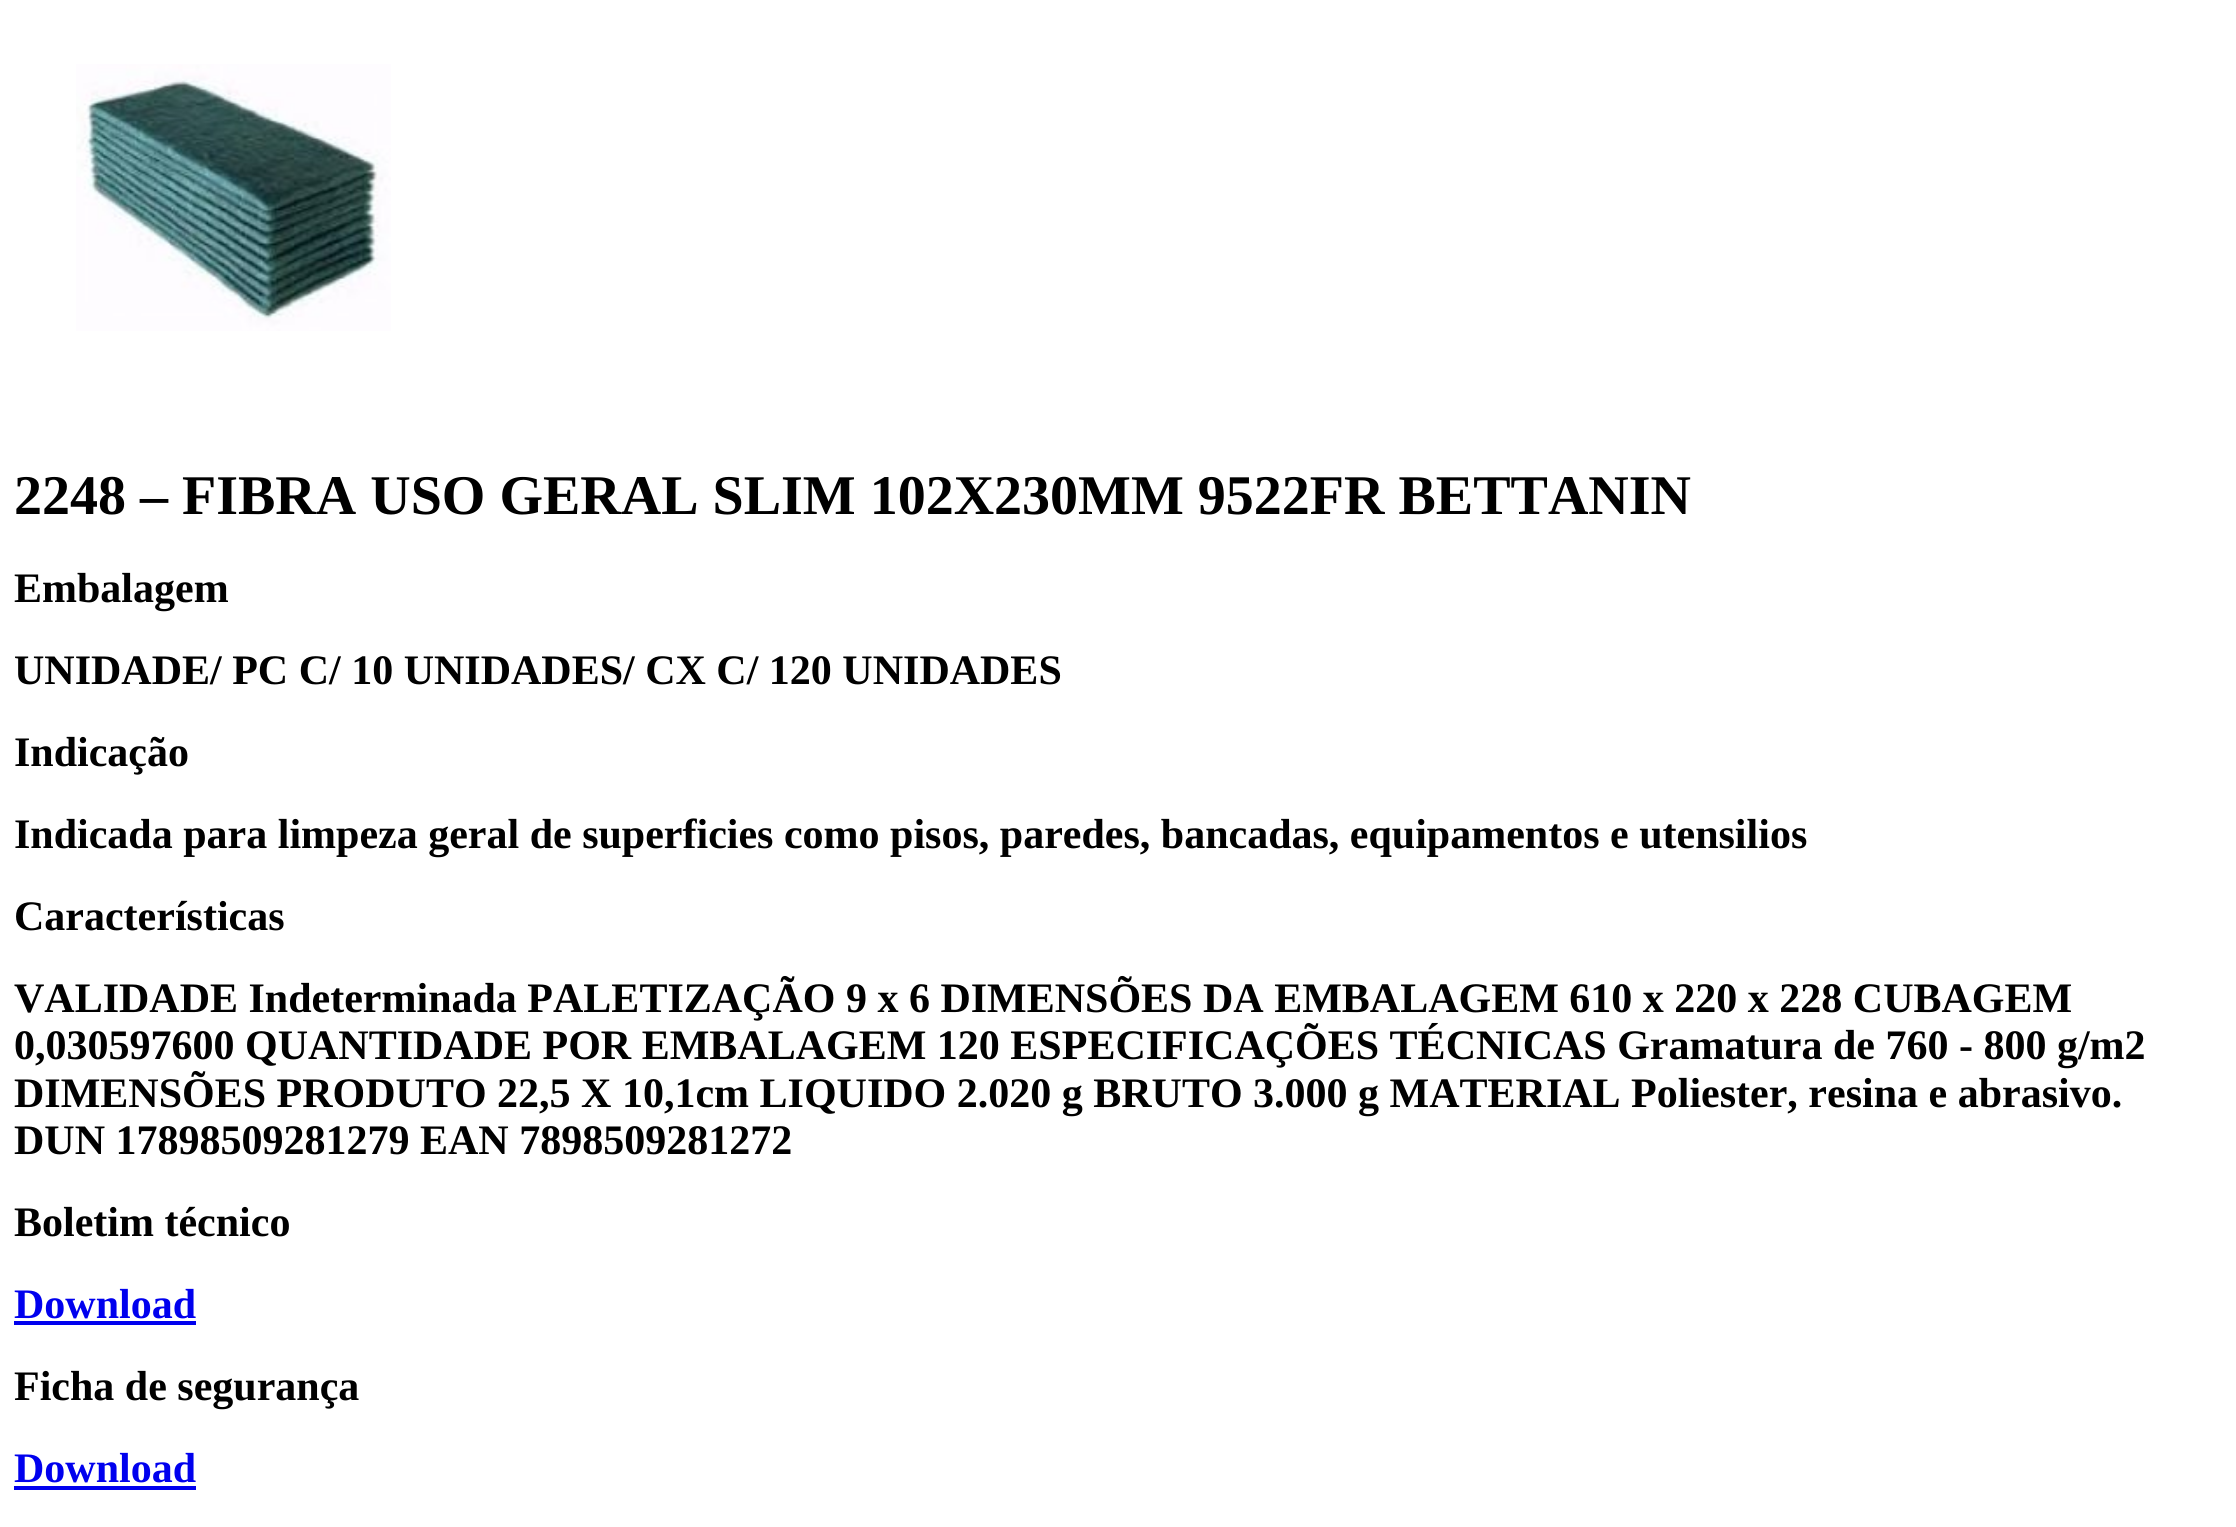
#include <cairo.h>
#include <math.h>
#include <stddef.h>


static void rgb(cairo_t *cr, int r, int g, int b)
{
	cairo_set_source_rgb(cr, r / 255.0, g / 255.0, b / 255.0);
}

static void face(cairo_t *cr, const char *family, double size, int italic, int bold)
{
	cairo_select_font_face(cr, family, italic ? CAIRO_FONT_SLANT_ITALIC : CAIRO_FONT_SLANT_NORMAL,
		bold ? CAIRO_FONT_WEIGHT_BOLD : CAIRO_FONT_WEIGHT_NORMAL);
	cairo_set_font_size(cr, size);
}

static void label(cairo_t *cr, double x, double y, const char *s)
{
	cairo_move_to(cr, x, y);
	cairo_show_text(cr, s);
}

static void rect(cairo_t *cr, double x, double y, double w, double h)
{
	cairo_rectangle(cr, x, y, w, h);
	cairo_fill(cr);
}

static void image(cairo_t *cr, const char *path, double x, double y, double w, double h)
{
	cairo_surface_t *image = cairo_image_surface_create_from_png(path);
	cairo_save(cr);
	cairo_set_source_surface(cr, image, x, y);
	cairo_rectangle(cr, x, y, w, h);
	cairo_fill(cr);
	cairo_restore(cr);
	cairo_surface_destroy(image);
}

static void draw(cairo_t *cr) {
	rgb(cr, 255, 255, 255);
	cairo_paint(cr);
	image(cr, "image0.png", 76, 64, 315, 267);
	face(cr, "Liberation Serif", 56, 0, 1);
	rgb(cr, 0, 0, 0);
	label(cr, 14, 514, "2248 – FIBRA USO GERAL SLIM 102X230MM 9522FR BETTANIN");
	face(cr, "Liberation Serif", 42, 0, 1);
	label(cr, 14, 602, "Embalagem");
	label(cr, 14, 684, "UNIDADE/ PC C/ 10 UNIDADES/ CX C/ 120 UNIDADES");
	label(cr, 14, 766, "Indicação");
	label(cr, 14, 848, "Indicada para limpeza geral de superficies como pisos, paredes, bancadas, equipamentos e utensilios");
	label(cr, 14, 930, "Características");
	label(cr, 14, 1012, "VALIDADE Indeterminada PALETIZAÇÃO 9 x 6 DIMENSÕES DA EMBALAGEM 610 x 220 x 228 CUBAGEM");
	label(cr, 14, 1059, "0,030597600 QUANTIDADE POR EMBALAGEM 120 ESPECIFICAÇÕES TÉCNICAS Gramatura de 760 - 800 g/m2");
	label(cr, 14, 1107, "DIMENSÕES PRODUTO 22,5 X 10,1cm LIQUIDO 2.020 g BRUTO 3.000 g MATERIAL Poliester, resina e abrasivo.");
	label(cr, 14, 1154, "DUN 17898509281279 EAN 7898509281272");
	label(cr, 14, 1236, "Boletim técnico");
	rgb(cr, 0, 0, 238);
	label(cr, 14, 1318, "Download");
	rect(cr, 14, 1321, 182, 4);
	rgb(cr, 0, 0, 0);
	label(cr, 14, 1400, "Ficha de segurança");
	rgb(cr, 0, 0, 238);
	label(cr, 14, 1482, "Download");
	rect(cr, 14, 1486, 182, 4);
}

int main(void) {
	cairo_surface_t *surface = cairo_image_surface_create(CAIRO_FORMAT_RGB24, 2236, 1527);
	cairo_t *cr = cairo_create(surface);
	cairo_font_options_t *options = cairo_font_options_create();
	cairo_font_options_set_hint_metrics(options, CAIRO_HINT_METRICS_OFF);
	cairo_font_options_set_hint_style(options, CAIRO_HINT_STYLE_NONE);
	cairo_set_font_options(cr, options);
	cairo_set_miter_limit(cr, 4);
	draw(cr);
	cairo_surface_write_to_png(surface, "render.png");
	cairo_font_options_destroy(options);
	cairo_destroy(cr);
	cairo_surface_destroy(surface);
	return 0;
}
